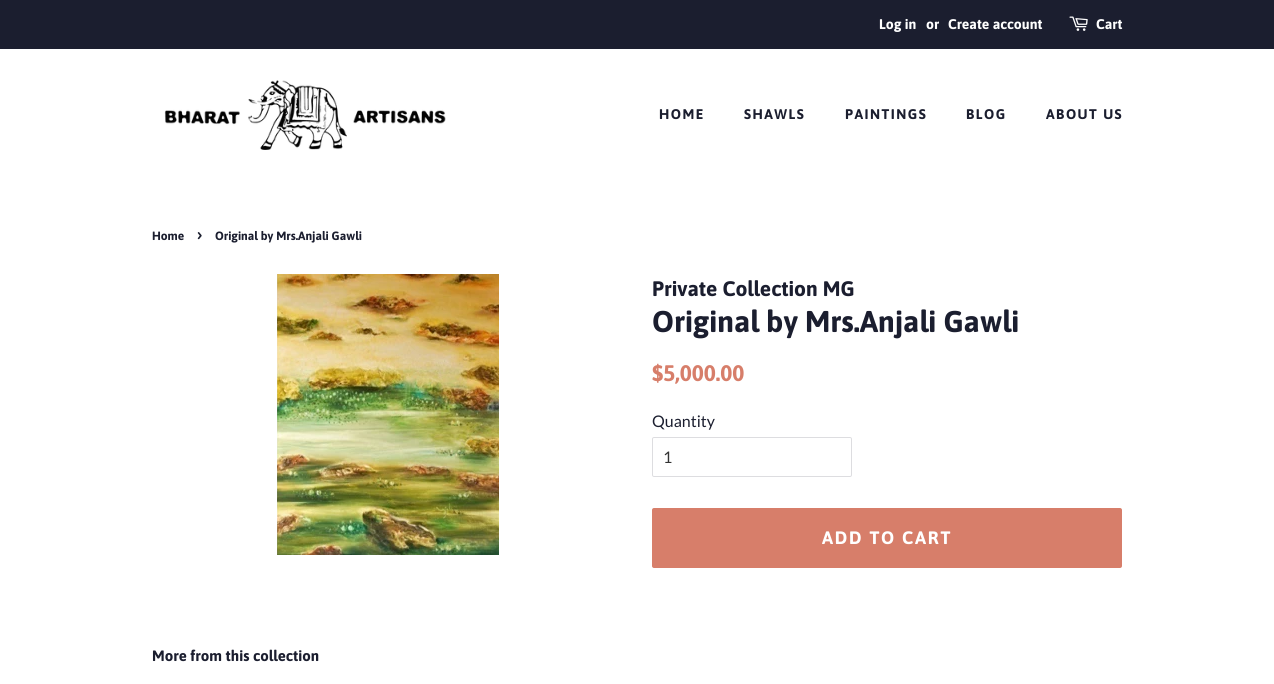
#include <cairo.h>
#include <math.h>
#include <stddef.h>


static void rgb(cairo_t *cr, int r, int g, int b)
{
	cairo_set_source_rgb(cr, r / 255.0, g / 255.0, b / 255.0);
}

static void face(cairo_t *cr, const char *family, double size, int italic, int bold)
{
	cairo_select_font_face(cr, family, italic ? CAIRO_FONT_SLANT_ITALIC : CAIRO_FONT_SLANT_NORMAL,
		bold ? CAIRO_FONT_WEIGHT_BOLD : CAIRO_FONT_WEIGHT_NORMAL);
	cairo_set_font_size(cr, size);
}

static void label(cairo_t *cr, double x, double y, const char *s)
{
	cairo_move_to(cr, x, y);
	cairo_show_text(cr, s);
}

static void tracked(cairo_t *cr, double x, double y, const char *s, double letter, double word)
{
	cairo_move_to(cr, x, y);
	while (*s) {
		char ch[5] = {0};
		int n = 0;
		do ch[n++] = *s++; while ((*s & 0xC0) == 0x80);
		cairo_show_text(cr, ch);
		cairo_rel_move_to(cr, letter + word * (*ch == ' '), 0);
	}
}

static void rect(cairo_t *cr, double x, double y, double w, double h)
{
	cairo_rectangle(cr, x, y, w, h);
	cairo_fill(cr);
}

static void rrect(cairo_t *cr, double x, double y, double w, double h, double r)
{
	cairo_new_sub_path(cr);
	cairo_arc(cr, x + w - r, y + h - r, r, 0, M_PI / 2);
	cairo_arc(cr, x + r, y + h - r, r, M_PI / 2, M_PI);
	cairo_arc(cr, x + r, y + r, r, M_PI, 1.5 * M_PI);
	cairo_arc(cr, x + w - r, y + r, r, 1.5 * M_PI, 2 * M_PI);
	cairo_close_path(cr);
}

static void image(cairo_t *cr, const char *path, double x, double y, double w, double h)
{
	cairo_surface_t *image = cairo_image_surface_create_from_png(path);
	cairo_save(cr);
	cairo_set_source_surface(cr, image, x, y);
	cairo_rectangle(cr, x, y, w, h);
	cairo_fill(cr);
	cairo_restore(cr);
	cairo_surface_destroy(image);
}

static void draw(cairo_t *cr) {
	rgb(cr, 255, 255, 255);
	cairo_paint(cr);
	rgb(cr, 27, 30, 47);
	rect(cr, 0, 0, 1274, 49);
	face(cr, "Asap", 14, 0, 1);
	rgb(cr, 255, 255, 255);
	label(cr, 879, 29, "Log in");
	label(cr, 926, 29, "or");
	label(cr, 948, 29, "Create account");
	image(cr, "image0.png", 1069, 16, 19, 15);
	label(cr, 1096, 29, "Cart");
	image(cr, "image1.png", 164, 80, 282, 70);
	rgb(cr, 27, 30, 47);
	tracked(cr, 659, 119, "HOME", 1.5, 0);
	tracked(cr, 744, 119, "SHAWLS", 1.5, 0);
	tracked(cr, 845, 119, "PAINTINGS", 1.5, 0);
	tracked(cr, 966, 119, "BLOG", 1.5, 0);
	tracked(cr, 1046, 119, "ABOUT US", 1.5, 0);
	face(cr, "Asap", 12, 0, 1);
	label(cr, 152, 240, "Home");
	face(cr, "Asap", 17, 0, 1);
	label(cr, 197, 240, "›");
	face(cr, "Asap", 12, 0, 1);
	label(cr, 215, 240, "Original by Mrs.Anjali Gawli");
	image(cr, "image2.png", 277, 274, 222, 281);
	face(cr, "Asap", 21, 0, 1);
	label(cr, 652, 296, "Private Collection MG");
	face(cr, "Asap", 30, 0, 1);
	label(cr, 652, 332, "Original by Mrs.Anjali Gawli");
	face(cr, "Asap", 22.5, 0, 1);
	rgb(cr, 215, 126, 106);
	label(cr, 652, 381, "$5,000.00");
	face(cr, "Lato", 16, 0, 0);
	rgb(cr, 27, 30, 47);
	label(cr, 652, 427, "Quantity");
	rrect(cr, 652.5, 437.5, 199, 39, 1.5);
	rgb(cr, 221, 221, 224);
	cairo_set_line_width(cr, 1);
	cairo_stroke(cr);
	rgb(cr, 51, 51, 51);
	label(cr, 663, 463, "1");
	rgb(cr, 215, 126, 106);
	rrect(cr, 652, 508, 470, 60, 2);
	cairo_fill(cr);
	face(cr, "Asap", 18, 0, 1);
	rgb(cr, 255, 255, 255);
	tracked(cr, 822, 544, "ADD TO CART", 1.75, 0);
	face(cr, "Asap", 15, 0, 1);
	rgb(cr, 27, 30, 47);
	label(cr, 152, 661, "More from this collection");
}

int main(void) {
	cairo_surface_t *surface = cairo_image_surface_create(CAIRO_FORMAT_RGB24, 1274, 684);
	cairo_t *cr = cairo_create(surface);
	cairo_font_options_t *options = cairo_font_options_create();
	cairo_font_options_set_hint_metrics(options, CAIRO_HINT_METRICS_OFF);
	cairo_font_options_set_hint_style(options, CAIRO_HINT_STYLE_NONE);
	cairo_set_font_options(cr, options);
	cairo_set_miter_limit(cr, 4);
	draw(cr);
	cairo_surface_write_to_png(surface, "render.png");
	cairo_font_options_destroy(options);
	cairo_destroy(cr);
	cairo_surface_destroy(surface);
	return 0;
}
